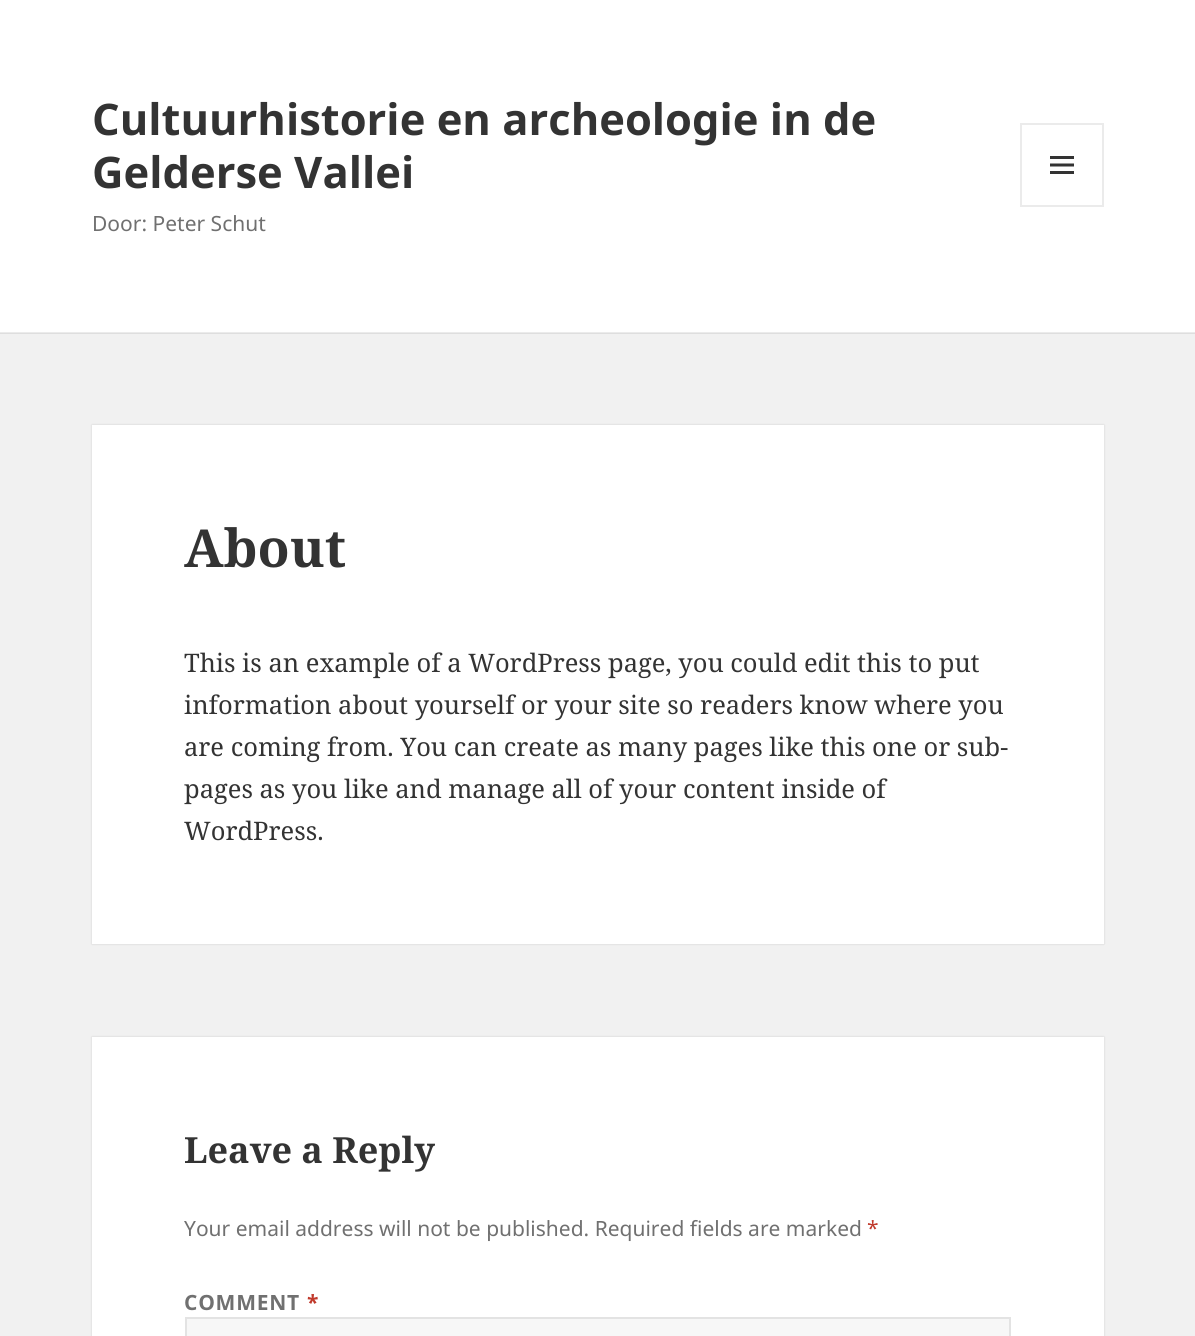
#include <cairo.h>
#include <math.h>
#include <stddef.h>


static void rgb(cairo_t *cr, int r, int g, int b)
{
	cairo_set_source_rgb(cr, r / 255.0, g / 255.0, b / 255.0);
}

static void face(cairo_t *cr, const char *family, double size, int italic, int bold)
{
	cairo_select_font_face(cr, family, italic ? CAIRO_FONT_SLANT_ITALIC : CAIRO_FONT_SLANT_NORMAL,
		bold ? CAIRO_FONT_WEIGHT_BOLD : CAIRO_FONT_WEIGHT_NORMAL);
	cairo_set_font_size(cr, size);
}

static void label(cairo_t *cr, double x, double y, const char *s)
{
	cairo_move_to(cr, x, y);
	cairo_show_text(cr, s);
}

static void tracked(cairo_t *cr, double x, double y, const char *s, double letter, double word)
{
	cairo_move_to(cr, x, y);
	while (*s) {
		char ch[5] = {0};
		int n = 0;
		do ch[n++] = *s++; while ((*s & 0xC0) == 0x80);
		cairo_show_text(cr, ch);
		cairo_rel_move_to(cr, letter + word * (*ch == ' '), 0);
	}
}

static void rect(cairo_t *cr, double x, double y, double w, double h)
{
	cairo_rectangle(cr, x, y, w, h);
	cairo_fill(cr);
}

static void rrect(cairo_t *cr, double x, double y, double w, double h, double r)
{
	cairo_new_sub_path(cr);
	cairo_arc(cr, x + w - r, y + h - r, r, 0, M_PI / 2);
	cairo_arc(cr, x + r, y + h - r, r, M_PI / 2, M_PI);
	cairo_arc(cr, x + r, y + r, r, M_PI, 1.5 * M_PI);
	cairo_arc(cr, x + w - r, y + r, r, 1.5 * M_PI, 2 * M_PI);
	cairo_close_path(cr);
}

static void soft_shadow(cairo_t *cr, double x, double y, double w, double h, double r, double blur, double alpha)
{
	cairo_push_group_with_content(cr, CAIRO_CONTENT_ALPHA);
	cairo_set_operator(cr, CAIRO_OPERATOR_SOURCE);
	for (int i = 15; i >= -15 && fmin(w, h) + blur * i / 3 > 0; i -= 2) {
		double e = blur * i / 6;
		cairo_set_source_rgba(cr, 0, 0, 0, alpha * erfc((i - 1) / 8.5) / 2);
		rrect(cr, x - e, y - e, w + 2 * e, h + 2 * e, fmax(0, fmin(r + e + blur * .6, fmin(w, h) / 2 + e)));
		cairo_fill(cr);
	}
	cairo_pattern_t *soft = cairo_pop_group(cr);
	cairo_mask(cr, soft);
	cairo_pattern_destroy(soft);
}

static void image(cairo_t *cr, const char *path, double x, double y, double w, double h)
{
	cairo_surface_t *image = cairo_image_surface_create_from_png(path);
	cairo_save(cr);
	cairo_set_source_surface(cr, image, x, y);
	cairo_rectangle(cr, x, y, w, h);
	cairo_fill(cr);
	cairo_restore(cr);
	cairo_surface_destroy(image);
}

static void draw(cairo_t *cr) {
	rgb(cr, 241, 241, 241);
	cairo_paint(cr);
	rgb(cr, 222, 222, 222);
	rect(cr, 0, 333, 1195, 1);
	rgb(cr, 255, 255, 255);
	rect(cr, 0, 0, 1195, 332);
	rgb(cr, 235, 235, 235);
	rect(cr, 0, 332, 1195, 1);
	face(cr, "Noto Sans", 43.5, 0, 1);
	rgb(cr, 51, 51, 51);
	label(cr, 92, 135, "Cultuurhistorie en archeologie in de");
	label(cr, 92, 188, "Gelderse Vallei");
	cairo_rectangle(cr, 1021, 124, 82, 82);
	rgb(cr, 235, 235, 235);
	cairo_stroke(cr);
	image(cr, "image0.png", 1050, 156, 24, 18);
	face(cr, "Noto Sans", 21, 0, 0);
	rgb(cr, 112, 112, 112);
	label(cr, 92, 231, "Door: Peter Schut");
	rgb(cr, 0, 0, 0);
	soft_shadow(cr, 92, 425, 1012, 519, 0, 1, 0.15);
	rgb(cr, 255, 255, 255);
	rect(cr, 92, 425, 1012, 519);
	face(cr, "Noto Serif", 52.5, 0, 1);
	rgb(cr, 51, 51, 51);
	label(cr, 184, 567, "About");
	face(cr, "Noto Serif", 25.5, 0, 0);
	label(cr, 184, 672, "This is an example of a WordPress page, you could edit this to put");
	label(cr, 184, 714, "information about yourself or your site so readers know where you");
	label(cr, 184, 756, "are coming from. You can create as many pages like this one or sub-");
	label(cr, 184, 798, "pages as you like and manage all of your content inside of");
	label(cr, 184, 840, "WordPress.");
	rgb(cr, 0, 0, 0);
	soft_shadow(cr, 92, 1037, 1012, 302, 0, 1, 0.15);
	rgb(cr, 255, 255, 255);
	rect(cr, 92, 1037, 1012, 299);
	face(cr, "Noto Serif", 36, 0, 1);
	rgb(cr, 51, 51, 51);
	label(cr, 184, 1163, "Leave a Reply");
	face(cr, "Noto Sans", 21, 0, 0);
	rgb(cr, 112, 112, 112);
	label(cr, 184, 1236, "Your email address will not be published. Required fields are marked");
	rgb(cr, 192, 57, 43);
	label(cr, 867, 1236, "*");
	face(cr, "Noto Sans", 21, 0, 1);
	rgb(cr, 112, 112, 112);
	tracked(cr, 184, 1310, "COMMENT", 0.75, 0);
	rgb(cr, 192, 57, 43);
	tracked(cr, 307, 1310, "*", 0.75, 0);
	rgb(cr, 247, 247, 247);
	cairo_rectangle(cr, 186, 1318, 824, 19);
	cairo_fill_preserve(cr);
	rgb(cr, 227, 227, 227);
	cairo_stroke(cr);
}

int main(void) {
	cairo_surface_t *surface = cairo_image_surface_create(CAIRO_FORMAT_RGB24, 1195, 1336);
	cairo_t *cr = cairo_create(surface);
	cairo_font_options_t *options = cairo_font_options_create();
	cairo_font_options_set_hint_metrics(options, CAIRO_HINT_METRICS_OFF);
	cairo_font_options_set_hint_style(options, CAIRO_HINT_STYLE_NONE);
	cairo_set_font_options(cr, options);
	cairo_set_miter_limit(cr, 4);
	draw(cr);
	cairo_surface_write_to_png(surface, "render.png");
	cairo_font_options_destroy(options);
	cairo_destroy(cr);
	cairo_surface_destroy(surface);
	return 0;
}
